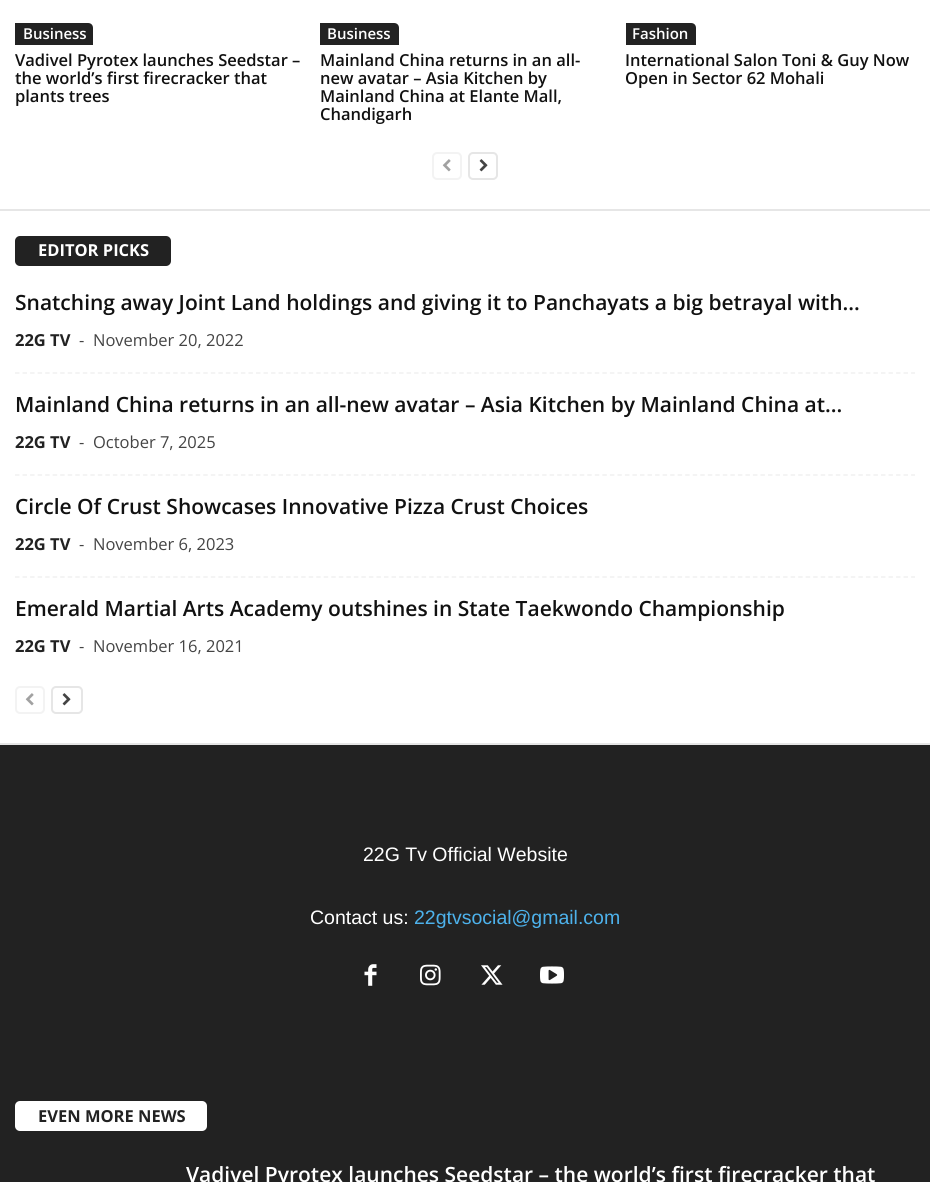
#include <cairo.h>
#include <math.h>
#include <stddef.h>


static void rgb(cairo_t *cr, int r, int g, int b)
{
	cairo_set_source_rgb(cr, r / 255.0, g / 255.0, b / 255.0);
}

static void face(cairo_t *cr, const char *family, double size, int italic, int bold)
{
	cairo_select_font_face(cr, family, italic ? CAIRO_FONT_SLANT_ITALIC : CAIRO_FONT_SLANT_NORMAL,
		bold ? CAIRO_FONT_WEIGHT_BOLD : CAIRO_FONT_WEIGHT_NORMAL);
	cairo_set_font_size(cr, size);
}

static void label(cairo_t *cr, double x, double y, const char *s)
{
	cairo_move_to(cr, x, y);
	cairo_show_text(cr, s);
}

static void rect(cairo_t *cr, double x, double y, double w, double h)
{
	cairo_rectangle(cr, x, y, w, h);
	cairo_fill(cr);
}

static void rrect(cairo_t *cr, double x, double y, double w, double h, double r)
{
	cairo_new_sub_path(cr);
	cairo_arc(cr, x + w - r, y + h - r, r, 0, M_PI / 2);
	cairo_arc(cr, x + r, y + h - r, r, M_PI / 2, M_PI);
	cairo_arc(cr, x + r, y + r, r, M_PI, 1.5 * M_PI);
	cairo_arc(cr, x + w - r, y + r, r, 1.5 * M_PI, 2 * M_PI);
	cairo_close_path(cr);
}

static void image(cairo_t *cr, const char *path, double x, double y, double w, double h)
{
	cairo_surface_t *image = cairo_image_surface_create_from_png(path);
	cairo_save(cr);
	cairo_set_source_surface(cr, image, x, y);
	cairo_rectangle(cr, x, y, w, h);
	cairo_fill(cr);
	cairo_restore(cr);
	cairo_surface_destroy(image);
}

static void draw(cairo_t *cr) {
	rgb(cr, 255, 255, 255);
	cairo_paint(cr);
	rgb(cr, 230, 230, 230);
	rect(cr, 0, 743, 930, 2);
	rgb(cr, 34, 34, 34);
	cairo_new_path(cr);
	cairo_move_to(cr, 15, 23);
	cairo_line_to(cr, 88, 23);
	cairo_curve_to(cr, 91, 23, 93, 25, 93, 28);
	cairo_line_to(cr, 93, 45);
	cairo_line_to(cr, 15, 45);
	cairo_close_path(cr);
	cairo_fill(cr);
	face(cr, "Open Sans SemiBold", 15, 0, 0);
	rgb(cr, 255, 255, 255);
	label(cr, 23, 39, "Business");
	face(cr, "Open Sans SemiBold", 16.5, 0, 0);
	rgb(cr, 17, 17, 17);
	label(cr, 15, 66, "Vadivel Pyrotex launches Seedstar –");
	label(cr, 15, 84, "the world’s first firecracker that");
	label(cr, 15, 102, "plants trees");
	rgb(cr, 34, 34, 34);
	cairo_new_path(cr);
	cairo_move_to(cr, 320, 23);
	cairo_line_to(cr, 394, 23);
	cairo_curve_to(cr, 397, 23, 399, 25, 399, 28);
	cairo_line_to(cr, 399, 45);
	cairo_line_to(cr, 320, 45);
	cairo_close_path(cr);
	cairo_fill(cr);
	face(cr, "Open Sans SemiBold", 15, 0, 0);
	rgb(cr, 255, 255, 255);
	label(cr, 327, 39, "Business");
	face(cr, "Open Sans SemiBold", 16.5, 0, 0);
	rgb(cr, 17, 17, 17);
	label(cr, 320, 66, "Mainland China returns in an all-");
	label(cr, 320, 84, "new avatar – Asia Kitchen by");
	label(cr, 320, 102, "Mainland China at Elante Mall,");
	label(cr, 320, 120, "Chandigarh");
	rgb(cr, 34, 34, 34);
	cairo_new_path(cr);
	cairo_move_to(cr, 626, 23);
	cairo_line_to(cr, 691, 23);
	cairo_curve_to(cr, 694, 23, 696, 25, 696, 28);
	cairo_line_to(cr, 696, 45);
	cairo_line_to(cr, 626, 45);
	cairo_close_path(cr);
	cairo_fill(cr);
	face(cr, "Open Sans SemiBold", 15, 0, 0);
	rgb(cr, 255, 255, 255);
	label(cr, 632, 39, "Fashion");
	face(cr, "Open Sans SemiBold", 16.5, 0, 0);
	rgb(cr, 17, 17, 17);
	label(cr, 625, 66, "International Salon Toni & Guy Now");
	label(cr, 625, 84, "Open in Sector 62 Mohali");
	rrect(cr, 433, 153, 28, 26, 4);
	rgb(cr, 243, 243, 243);
	cairo_stroke(cr);
	image(cr, "image0.png", 442, 159, 9, 13);
	rrect(cr, 469, 153, 28, 26, 4);
	rgb(cr, 230, 230, 230);
	cairo_stroke(cr);
	image(cr, "image1.png", 479, 159, 9, 13);
	rect(cr, 0, 209, 930, 2);
	rgb(cr, 34, 34, 34);
	rrect(cr, 15, 236, 156, 30, 5);
	cairo_fill(cr);
	face(cr, "Open Sans", 16.5, 0, 1);
	rgb(cr, 255, 255, 255);
	label(cr, 38, 256, "EDITOR PICKS");
	cairo_new_path(cr);
	cairo_move_to(cr, 15, 373);
	cairo_line_to(cr, 915, 373);
	rgb(cr, 241, 241, 241);
	cairo_set_line_width(cr, 1.5);
	cairo_set_dash(cr, (double[]){4.5, 3.03}, 2, 0);
	cairo_stroke(cr);
	face(cr, "Open Sans SemiBold", 21, 0, 0);
	rgb(cr, 17, 17, 17);
	label(cr, 15, 310, "Snatching away Joint Land holdings and giving it to Panchayats a big betrayal with...");
	face(cr, "Open Sans", 16.5, 0, 1);
	rgb(cr, 34, 34, 34);
	label(cr, 15, 346, "22G TV");
	face(cr, "Open Sans", 16.5, 0, 0);
	rgb(cr, 68, 68, 68);
	label(cr, 79, 346, "-");
	label(cr, 93, 346, "November 20, 2022");
	cairo_new_path(cr);
	cairo_move_to(cr, 15, 475);
	cairo_line_to(cr, 915, 475);
	rgb(cr, 241, 241, 241);
	cairo_stroke(cr);
	face(cr, "Open Sans SemiBold", 21, 0, 0);
	rgb(cr, 17, 17, 17);
	label(cr, 15, 412, "Mainland China returns in an all-new avatar – Asia Kitchen by Mainland China at...");
	face(cr, "Open Sans", 16.5, 0, 1);
	rgb(cr, 34, 34, 34);
	label(cr, 15, 448, "22G TV");
	face(cr, "Open Sans", 16.5, 0, 0);
	rgb(cr, 68, 68, 68);
	label(cr, 79, 448, "-");
	label(cr, 93, 448, "October 7, 2025");
	cairo_new_path(cr);
	cairo_move_to(cr, 15, 577);
	cairo_line_to(cr, 915, 577);
	rgb(cr, 241, 241, 241);
	cairo_stroke(cr);
	face(cr, "Open Sans SemiBold", 21, 0, 0);
	rgb(cr, 17, 17, 17);
	label(cr, 15, 514, "Circle Of Crust Showcases Innovative Pizza Crust Choices");
	face(cr, "Open Sans", 16.5, 0, 1);
	rgb(cr, 34, 34, 34);
	label(cr, 15, 550, "22G TV");
	face(cr, "Open Sans", 16.5, 0, 0);
	rgb(cr, 68, 68, 68);
	label(cr, 79, 550, "-");
	label(cr, 93, 550, "November 6, 2023");
	face(cr, "Open Sans SemiBold", 21, 0, 0);
	rgb(cr, 17, 17, 17);
	label(cr, 15, 616, "Emerald Martial Arts Academy outshines in State Taekwondo Championship");
	face(cr, "Open Sans", 16.5, 0, 1);
	rgb(cr, 34, 34, 34);
	label(cr, 15, 652, "22G TV");
	face(cr, "Open Sans", 16.5, 0, 0);
	rgb(cr, 68, 68, 68);
	label(cr, 79, 652, "-");
	label(cr, 93, 652, "November 16, 2021");
	rrect(cr, 16, 687, 28, 26, 4);
	rgb(cr, 243, 243, 243);
	cairo_set_line_width(cr, 2);
	cairo_set_dash(cr, NULL, 0, 0);
	cairo_stroke(cr);
	image(cr, "image0.png", 25, 693, 9, 13);
	rrect(cr, 52, 687, 30, 26, 4);
	rgb(cr, 230, 230, 230);
	cairo_stroke(cr);
	image(cr, "image1.png", 62, 693, 9, 13);
	rgb(cr, 34, 34, 34);
	rect(cr, 0, 745, 930, 437);
	face(cr, "Liberation Sans", 19.5, 0, 0);
	rgb(cr, 255, 255, 255);
	label(cr, 363, 861, "22G Tv Official Website");
	label(cr, 310, 924, "Contact us:");
	rgb(cr, 77, 178, 236);
	label(cr, 414, 924, "22gtvsocial@gmail.com");
	image(cr, "image2.png", 364, 964, 13, 22);
	image(cr, "image3.png", 420, 964, 21, 22);
	image(cr, "image4.png", 481, 965, 22, 20);
	image(cr, "image5.png", 540, 966, 24, 18);
	rgb(cr, 255, 255, 255);
	rrect(cr, 15, 1101, 192, 30, 5);
	cairo_fill(cr);
	face(cr, "Open Sans", 16.5, 0, 1);
	rgb(cr, 34, 34, 34);
	label(cr, 38, 1122, "EVEN MORE NEWS");
	face(cr, "Open Sans SemiBold", 21, 0, 0);
	rgb(cr, 255, 255, 255);
	label(cr, 186, 1182, "Vadivel Pyrotex launches Seedstar – the world’s first firecracker that");
}

int main(void) {
	cairo_surface_t *surface = cairo_image_surface_create(CAIRO_FORMAT_RGB24, 930, 1182);
	cairo_t *cr = cairo_create(surface);
	cairo_font_options_t *options = cairo_font_options_create();
	cairo_font_options_set_hint_metrics(options, CAIRO_HINT_METRICS_OFF);
	cairo_font_options_set_hint_style(options, CAIRO_HINT_STYLE_NONE);
	cairo_set_font_options(cr, options);
	cairo_set_miter_limit(cr, 4);
	draw(cr);
	cairo_surface_write_to_png(surface, "render.png");
	cairo_font_options_destroy(options);
	cairo_destroy(cr);
	cairo_surface_destroy(surface);
	return 0;
}
